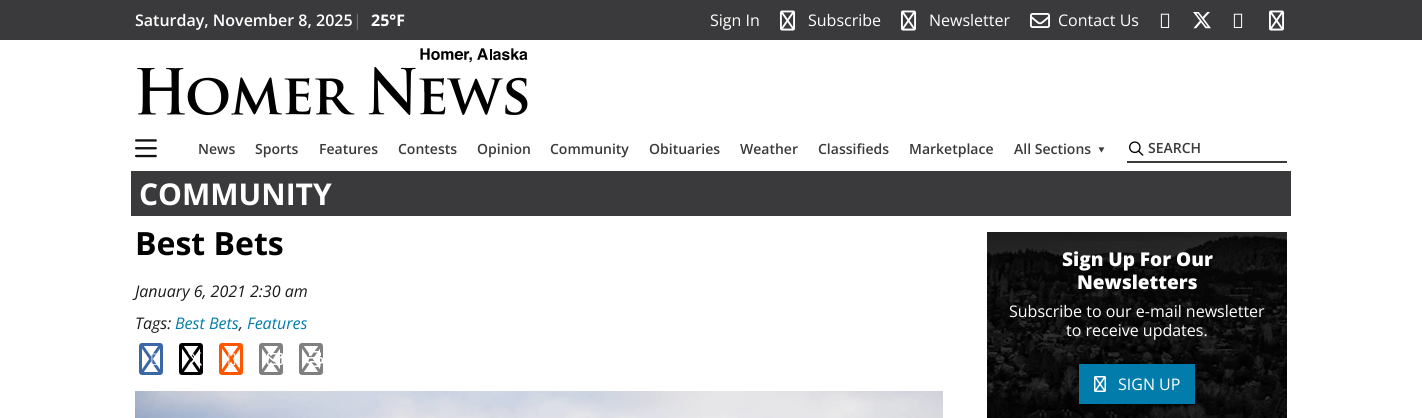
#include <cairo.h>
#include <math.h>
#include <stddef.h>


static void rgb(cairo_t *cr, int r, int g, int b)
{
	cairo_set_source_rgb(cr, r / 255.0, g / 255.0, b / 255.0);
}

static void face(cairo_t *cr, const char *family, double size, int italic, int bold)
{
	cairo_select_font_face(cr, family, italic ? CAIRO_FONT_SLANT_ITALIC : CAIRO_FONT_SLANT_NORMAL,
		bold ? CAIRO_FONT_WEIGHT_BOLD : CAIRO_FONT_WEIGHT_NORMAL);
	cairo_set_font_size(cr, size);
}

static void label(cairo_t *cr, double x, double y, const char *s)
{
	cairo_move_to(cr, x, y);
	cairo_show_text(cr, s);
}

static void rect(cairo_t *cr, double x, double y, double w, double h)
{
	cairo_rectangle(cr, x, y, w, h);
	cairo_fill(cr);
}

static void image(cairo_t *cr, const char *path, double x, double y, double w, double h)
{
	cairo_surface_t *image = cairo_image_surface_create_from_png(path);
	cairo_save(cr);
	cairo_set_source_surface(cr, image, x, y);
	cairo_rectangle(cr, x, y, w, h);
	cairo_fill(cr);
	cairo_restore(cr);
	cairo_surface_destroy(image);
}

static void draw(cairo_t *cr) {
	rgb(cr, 255, 255, 255);
	cairo_paint(cr);
	rgb(cr, 58, 58, 60);
	rect(cr, 0, 0, 1422, 40);
	face(cr, "Open Sans SemiBold", 16, 0, 0);
	rgb(cr, 255, 255, 255);
	label(cr, 135, 26, "Saturday, November 8, 2025");
	face(cr, "Open Sans", 16, 0, 0);
	rgb(cr, 113, 113, 113);
	label(cr, 353, 26, "|");
	face(cr, "Open Sans", 16, 0, 1);
	rgb(cr, 255, 255, 255);
	label(cr, 371, 26, "25°F");
	face(cr, "Open Sans", 16, 0, 0);
	label(cr, 710, 26, "Sign In");
	image(cr, "image0.png", 780, 10, 15, 21);
	label(cr, 808, 26, "Subscribe");
	image(cr, "image0.png", 901, 10, 15, 21);
	label(cr, 929, 26, "Newsletter");
	image(cr, "image1.png", 1030, 13, 20, 15);
	label(cr, 1058, 26, "Contact Us");
	image(cr, "image2.png", 1160, 13, 10, 15);
	image(cr, "image3.png", 1193, 12, 18, 17);
	image(cr, "image2.png", 1233, 13, 10, 15);
	image(cr, "image0.png", 1269, 10, 15, 21);
	image(cr, "image4.png", 137, 48, 391, 68);
	image(cr, "image5.png", 135, 139, 22, 19);
	face(cr, "Open Sans SemiBold", 14, 0, 0);
	rgb(cr, 58, 58, 60);
	label(cr, 198, 154, "News");
	label(cr, 255, 154, "Sports");
	label(cr, 319, 154, "Features");
	label(cr, 398, 154, "Contests");
	label(cr, 477, 154, "Opinion");
	label(cr, 550, 154, "Community");
	label(cr, 649, 154, "Obituaries");
	label(cr, 740, 154, "Weather");
	label(cr, 818, 154, "Classifieds");
	label(cr, 909, 154, "Marketplace");
	label(cr, 1014, 154, "All Sections");
	face(cr, "Noto Sans", 20, 0, 0);
	cairo_save(cr);
	cairo_translate(cr, 1094, 146);
	cairo_rotate(cr, 90 * M_PI / 180);
	label(cr, 0, 0, "‣");
	cairo_restore(cr);
	image(cr, "image6.png", 1129, 141, 15, 15);
	rect(cr, 1127, 161, 160, 2);
	face(cr, "Open Sans SemiBold", 14, 0, 0);
	label(cr, 1148, 153, "SEARCH");
	rect(cr, 131, 171, 1160, 45);
	face(cr, "Open Sans", 30, 0, 1);
	rgb(cr, 255, 255, 255);
	label(cr, 139, 205, "COMMUNITY");
	face(cr, "Open Sans", 32, 0, 1);
	rgb(cr, 0, 0, 0);
	label(cr, 135, 255, "Best Bets");
	face(cr, "Open Sans", 16, 1, 0);
	rgb(cr, 26, 26, 26);
	label(cr, 135, 297, "January 6, 2021 2:30 am");
	label(cr, 135, 329, "Tags:");
	rgb(cr, 2, 124, 170);
	label(cr, 175, 329, "Best Bets");
	rgb(cr, 26, 26, 26);
	label(cr, 239, 329, ",");
	rgb(cr, 2, 124, 170);
	label(cr, 247, 329, "Features");
	image(cr, "image7.png", 139, 343, 24, 32);
	image(cr, "image8.png", 151, 353, 6, 12);
	image(cr, "image9.png", 179, 343, 24, 32);
	image(cr, "image10.png", 188, 352, 14, 14);
	image(cr, "image11.png", 219, 343, 24, 32);
	image(cr, "image12.png", 228, 353, 8, 12);
	image(cr, "image13.png", 259, 343, 24, 32);
	image(cr, "image14.png", 267, 353, 16, 12);
	image(cr, "image13.png", 299, 343, 24, 32);
	image(cr, "image15.png", 307, 351, 16, 16);
	image(cr, "image16.png", 135, 391, 808, 27);
	image(cr, "image17.png", 987, 232, 300, 186);
	face(cr, "Open Sans ExtraBold", 19, 0, 0);
	rgb(cr, 255, 255, 255);
	label(cr, 1062, 266, "Sign Up For Our");
	label(cr, 1077, 289, "Newsletters");
	face(cr, "Open Sans", 16, 0, 0);
	label(cr, 1009, 317, "Subscribe to our e-mail newsletter");
	label(cr, 1066, 336, "to receive updates.");
	rgb(cr, 2, 124, 170);
	rect(cr, 1079, 364, 116, 40);
	image(cr, "image18.png", 1094, 376, 12, 16);
	rgb(cr, 255, 255, 255);
	label(cr, 1118, 390, "SIGN UP");
}

int main(void) {
	cairo_surface_t *surface = cairo_image_surface_create(CAIRO_FORMAT_RGB24, 1422, 418);
	cairo_t *cr = cairo_create(surface);
	cairo_font_options_t *options = cairo_font_options_create();
	cairo_font_options_set_hint_metrics(options, CAIRO_HINT_METRICS_OFF);
	cairo_font_options_set_hint_style(options, CAIRO_HINT_STYLE_NONE);
	cairo_set_font_options(cr, options);
	cairo_set_miter_limit(cr, 4);
	draw(cr);
	cairo_surface_write_to_png(surface, "render.png");
	cairo_font_options_destroy(options);
	cairo_destroy(cr);
	cairo_surface_destroy(surface);
	return 0;
}
